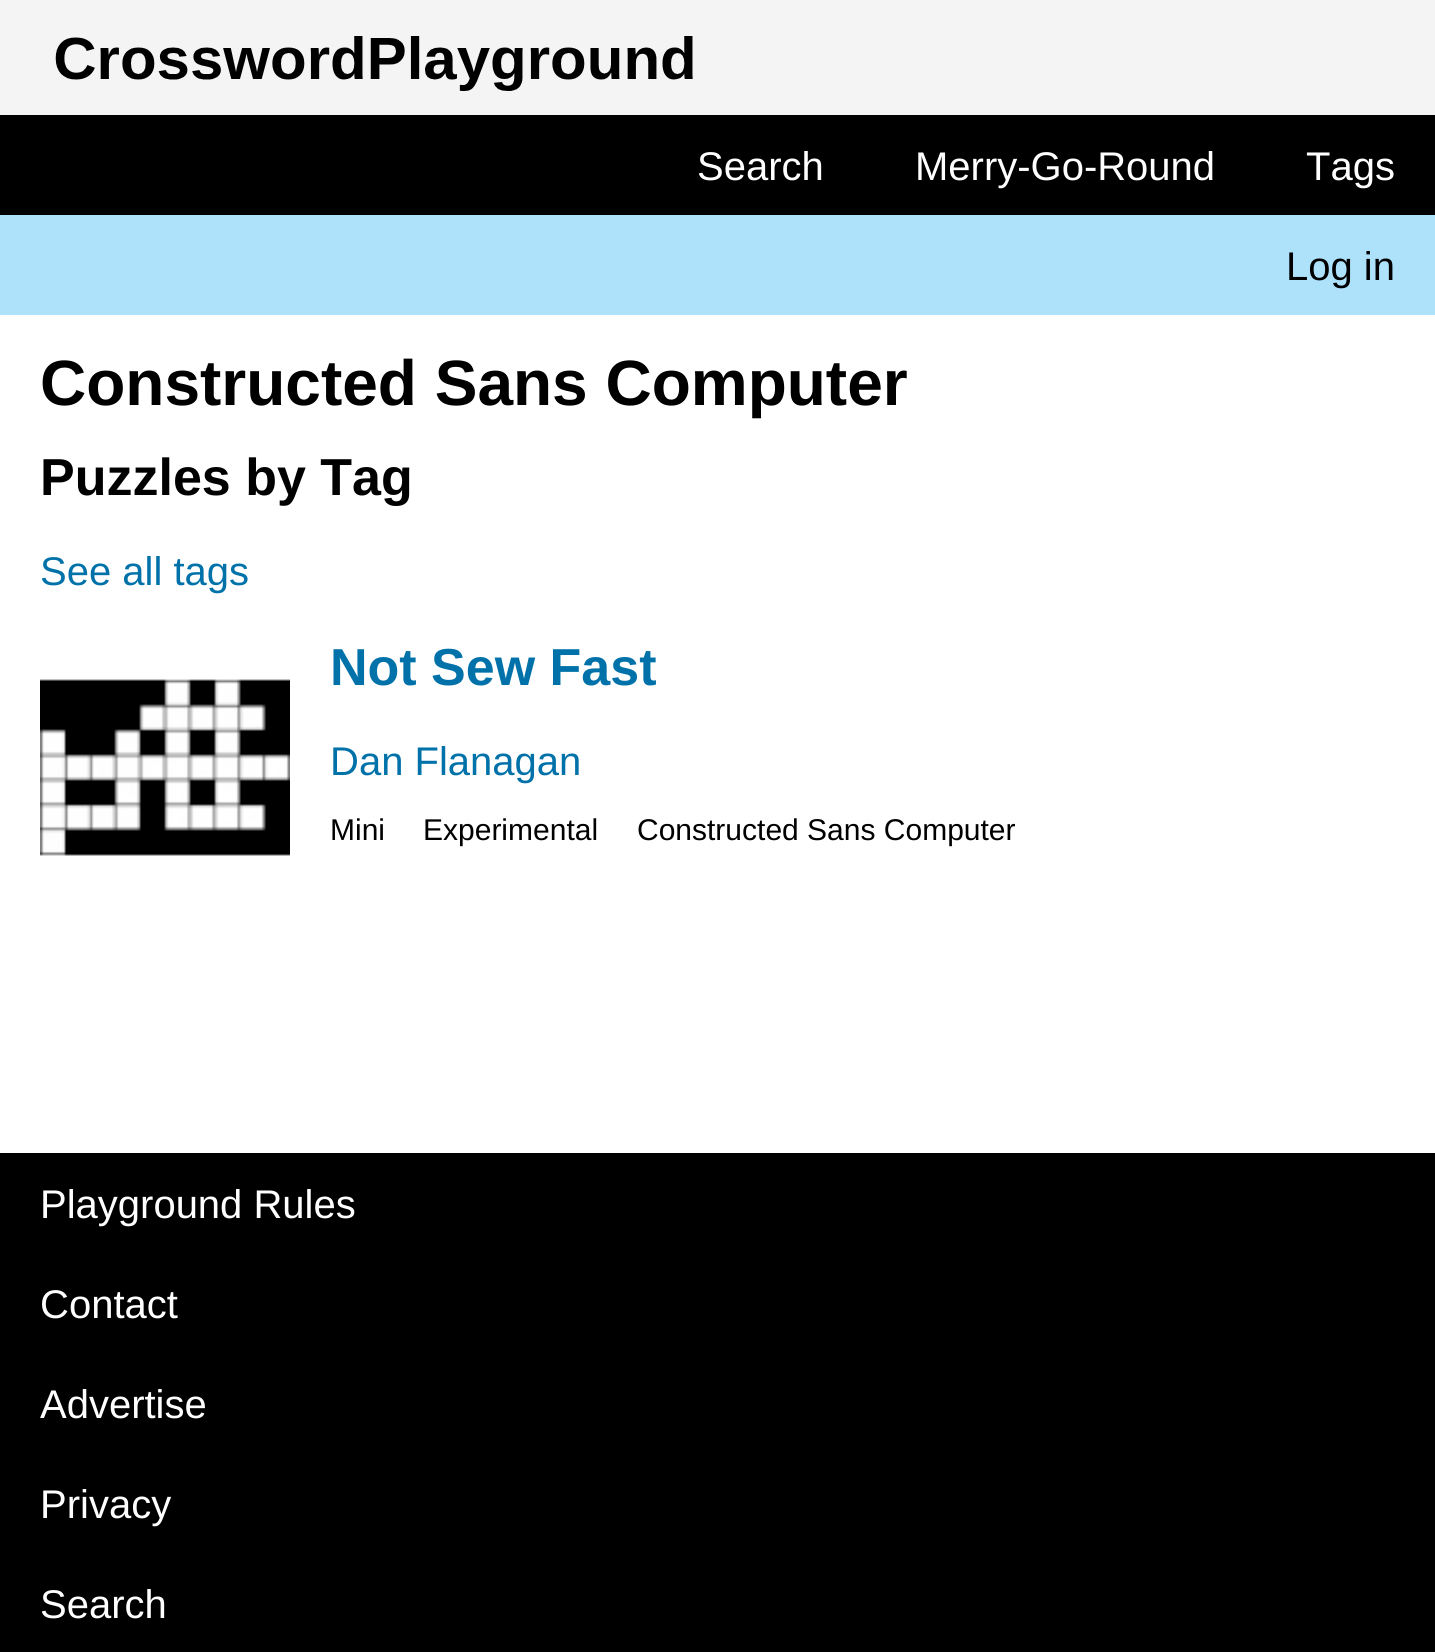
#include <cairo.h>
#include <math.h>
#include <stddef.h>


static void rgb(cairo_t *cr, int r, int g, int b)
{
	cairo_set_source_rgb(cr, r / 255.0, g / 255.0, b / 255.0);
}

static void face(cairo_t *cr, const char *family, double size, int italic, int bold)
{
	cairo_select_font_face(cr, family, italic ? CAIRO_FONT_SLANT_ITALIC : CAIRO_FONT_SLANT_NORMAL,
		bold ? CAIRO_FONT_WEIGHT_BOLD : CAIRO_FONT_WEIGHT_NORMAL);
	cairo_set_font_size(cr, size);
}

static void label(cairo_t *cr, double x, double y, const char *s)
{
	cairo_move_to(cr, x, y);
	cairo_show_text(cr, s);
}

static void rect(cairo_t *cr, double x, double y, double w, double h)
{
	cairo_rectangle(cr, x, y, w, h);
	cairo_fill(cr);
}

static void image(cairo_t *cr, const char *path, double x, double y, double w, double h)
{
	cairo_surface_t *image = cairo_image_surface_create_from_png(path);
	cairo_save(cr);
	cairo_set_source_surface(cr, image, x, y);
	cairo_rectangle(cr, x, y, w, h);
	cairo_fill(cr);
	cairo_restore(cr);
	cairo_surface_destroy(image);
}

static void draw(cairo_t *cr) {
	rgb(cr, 255, 255, 255);
	cairo_paint(cr);
	rgb(cr, 244, 244, 244);
	rect(cr, 0, 0, 1435, 115);
	image(cr, "image0.png", 55, 36, 638, 55);
	rgb(cr, 0, 0, 0);
	rect(cr, 0, 115, 1435, 100);
	face(cr, "Liberation Sans", 40, 0, 0);
	rgb(cr, 255, 255, 255);
	label(cr, 697, 180, "Search");
	label(cr, 915, 180, "Merry-Go-Round");
	label(cr, 1306, 180, "Tags");
	rgb(cr, 174, 226, 251);
	rect(cr, 0, 215, 1435, 100);
	rgb(cr, 0, 0, 0);
	label(cr, 1286, 280, "Log in");
	face(cr, "Liberation Sans", 64, 0, 1);
	label(cr, 40, 405, "Constructed Sans Computer");
	face(cr, "Liberation Sans", 52, 0, 1);
	label(cr, 40, 495, "Puzzles by Tag");
	face(cr, "Liberation Sans", 40, 0, 0);
	rgb(cr, 0, 114, 169);
	label(cr, 40, 585, "See all tags");
	face(cr, "Liberation Sans", 52, 0, 1);
	label(cr, 330, 685, "Not Sew Fast");
	image(cr, "image1.png", 40, 679, 250, 177);
	face(cr, "Liberation Sans", 40, 0, 0);
	label(cr, 330, 775, "Dan Flanagan");
	face(cr, "Liberation Sans", 30, 0, 0);
	rgb(cr, 0, 0, 0);
	label(cr, 330, 840, "Mini");
	label(cr, 423, 840, "Experimental");
	label(cr, 637, 840, "Constructed Sans Computer");
	rect(cr, 0, 1153, 1435, 499);
	face(cr, "Liberation Sans", 40, 0, 0);
	rgb(cr, 255, 255, 255);
	label(cr, 40, 1218, "Playground Rules");
	label(cr, 40, 1318, "Contact");
	label(cr, 40, 1418, "Advertise");
	label(cr, 40, 1518, "Privacy");
	label(cr, 40, 1618, "Search");
}

int main(void) {
	cairo_surface_t *surface = cairo_image_surface_create(CAIRO_FORMAT_RGB24, 1435, 1652);
	cairo_t *cr = cairo_create(surface);
	cairo_font_options_t *options = cairo_font_options_create();
	cairo_font_options_set_hint_metrics(options, CAIRO_HINT_METRICS_OFF);
	cairo_font_options_set_hint_style(options, CAIRO_HINT_STYLE_NONE);
	cairo_set_font_options(cr, options);
	cairo_set_miter_limit(cr, 4);
	draw(cr);
	cairo_surface_write_to_png(surface, "render.png");
	cairo_font_options_destroy(options);
	cairo_destroy(cr);
	cairo_surface_destroy(surface);
	return 0;
}
